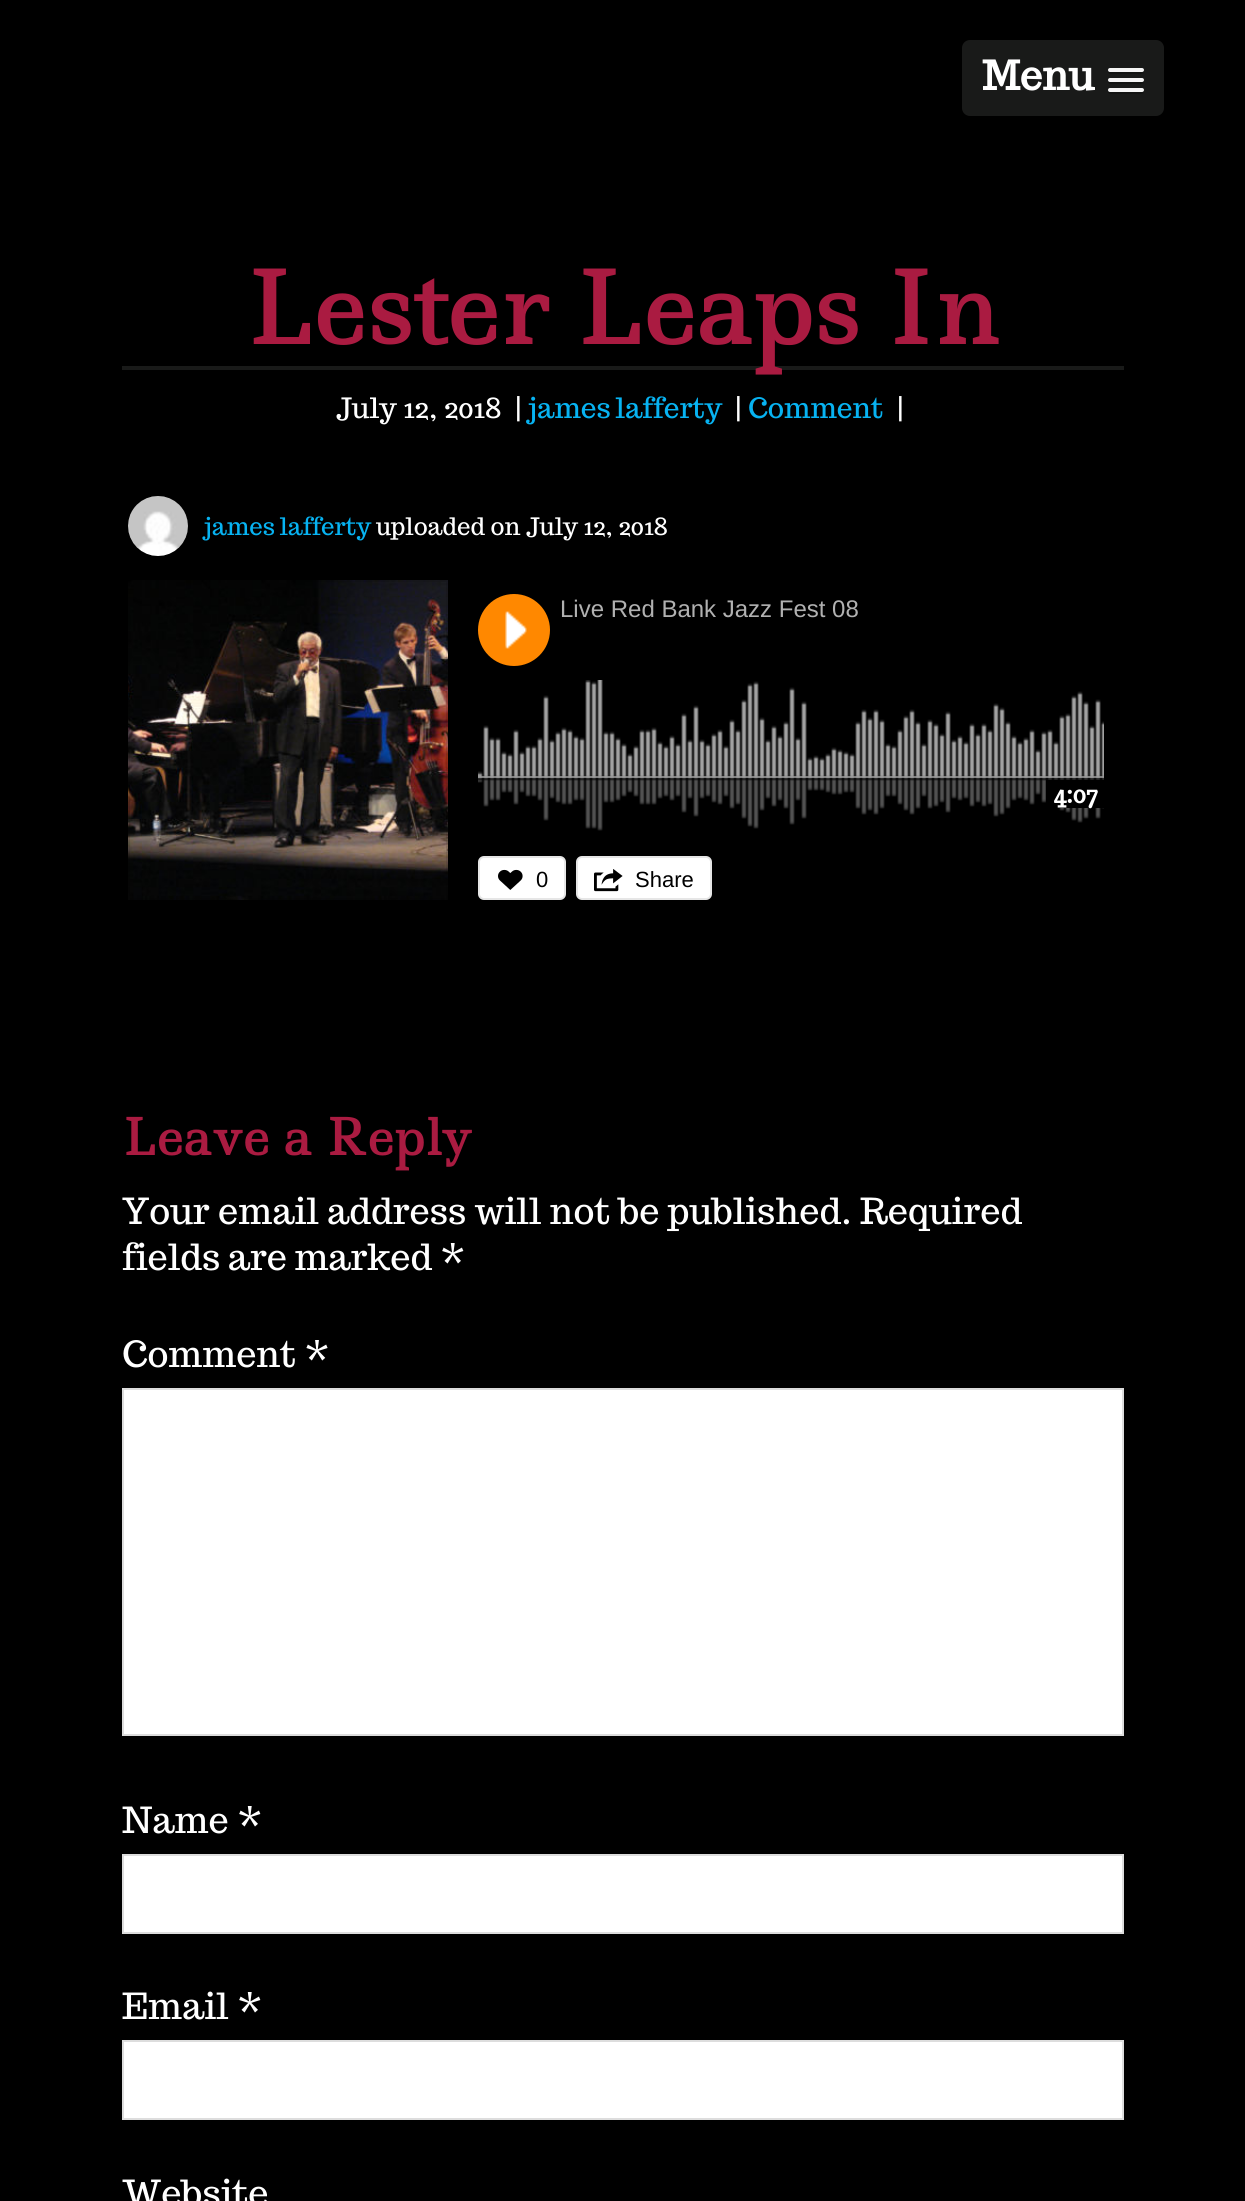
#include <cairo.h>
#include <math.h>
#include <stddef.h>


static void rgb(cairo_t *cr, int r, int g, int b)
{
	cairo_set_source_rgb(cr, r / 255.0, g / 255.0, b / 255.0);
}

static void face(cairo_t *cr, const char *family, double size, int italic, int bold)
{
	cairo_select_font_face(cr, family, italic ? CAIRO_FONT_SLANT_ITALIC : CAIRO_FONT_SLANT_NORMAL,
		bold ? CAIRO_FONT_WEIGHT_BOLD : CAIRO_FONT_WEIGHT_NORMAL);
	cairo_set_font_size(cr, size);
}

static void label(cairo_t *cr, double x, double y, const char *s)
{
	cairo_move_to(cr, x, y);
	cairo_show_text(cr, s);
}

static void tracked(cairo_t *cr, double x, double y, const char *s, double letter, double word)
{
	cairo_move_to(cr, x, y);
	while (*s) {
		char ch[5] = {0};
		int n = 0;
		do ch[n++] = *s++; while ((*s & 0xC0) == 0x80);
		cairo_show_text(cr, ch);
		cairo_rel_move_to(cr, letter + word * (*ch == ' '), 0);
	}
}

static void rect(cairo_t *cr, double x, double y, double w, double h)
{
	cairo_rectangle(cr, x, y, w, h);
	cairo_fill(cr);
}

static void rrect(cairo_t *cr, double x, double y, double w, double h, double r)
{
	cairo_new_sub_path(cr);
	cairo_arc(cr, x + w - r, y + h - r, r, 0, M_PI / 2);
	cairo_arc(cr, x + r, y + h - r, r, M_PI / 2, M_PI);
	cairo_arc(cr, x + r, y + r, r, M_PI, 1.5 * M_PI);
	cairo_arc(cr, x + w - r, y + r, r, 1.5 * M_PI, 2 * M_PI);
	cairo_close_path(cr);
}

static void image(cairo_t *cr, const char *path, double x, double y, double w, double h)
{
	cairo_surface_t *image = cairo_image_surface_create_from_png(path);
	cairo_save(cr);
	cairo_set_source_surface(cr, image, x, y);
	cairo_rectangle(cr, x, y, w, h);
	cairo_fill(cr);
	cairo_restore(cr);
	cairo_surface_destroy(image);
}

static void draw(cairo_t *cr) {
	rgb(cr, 0, 0, 0);
	cairo_paint(cr);
	rgb(cr, 25, 26, 25);
	rrect(cr, 962, 40, 202, 76, 8);
	cairo_fill(cr);
	face(cr, "Trocchi", 40, 0, 1);
	rgb(cr, 255, 255, 255);
	label(cr, 982, 90, "Menu");
	rgb(cr, 19, 20, 19);
	cairo_new_path(cr);
	cairo_move_to(cr, 1108.5, 71);
	cairo_curve_to(cr, 1106, 75, 1115, 74, 1115.5, 74);
	cairo_line_to(cr, 1136.5, 74);
	cairo_curve_to(cr, 1137, 74, 1146, 75, 1143.5, 71);
	cairo_curve_to(cr, 1143.5, 71.5, 1142.5, 72, 1142, 72);
	cairo_line_to(cr, 1110, 72);
	cairo_curve_to(cr, 1109.5, 72, 1108.5, 71.5, 1108.5, 71);
	cairo_close_path(cr);
	cairo_fill(cr);
	rgb(cr, 245, 245, 245);
	rrect(cr, 1108, 68, 36, 4, 2);
	cairo_fill(cr);
	rgb(cr, 19, 20, 19);
	cairo_new_path(cr);
	cairo_move_to(cr, 1108.5, 81);
	cairo_curve_to(cr, 1106, 85, 1115, 84, 1115.5, 84);
	cairo_line_to(cr, 1136.5, 84);
	cairo_curve_to(cr, 1137, 84, 1146, 85, 1143.5, 81);
	cairo_curve_to(cr, 1143.5, 81.5, 1142.5, 82, 1142, 82);
	cairo_line_to(cr, 1110, 82);
	cairo_curve_to(cr, 1109.5, 82, 1108.5, 81.5, 1108.5, 81);
	cairo_close_path(cr);
	cairo_fill(cr);
	rgb(cr, 245, 245, 245);
	rrect(cr, 1108, 78, 36, 4, 2);
	cairo_fill(cr);
	rgb(cr, 19, 20, 19);
	cairo_new_path(cr);
	cairo_move_to(cr, 1108.5, 91);
	cairo_curve_to(cr, 1106, 95, 1115, 94, 1115.5, 94);
	cairo_line_to(cr, 1136.5, 94);
	cairo_curve_to(cr, 1137, 94, 1146, 95, 1143.5, 91);
	cairo_curve_to(cr, 1143.5, 91.5, 1142.5, 92, 1142, 92);
	cairo_line_to(cr, 1110, 92);
	cairo_curve_to(cr, 1109.5, 92, 1108.5, 91.5, 1108.5, 91);
	cairo_close_path(cr);
	cairo_fill(cr);
	rgb(cr, 245, 245, 245);
	rrect(cr, 1108, 88, 36, 4, 2);
	cairo_fill(cr);
	rgb(cr, 25, 26, 25);
	rect(cr, 122, 366, 1002, 4);
	face(cr, "Ledger", 97, 0, 1);
	rgb(cr, 170, 27, 65);
	label(cr, 245, 344, "Lester Leaps In");
	face(cr, "Trocchi", 28, 0, 0);
	rgb(cr, 255, 255, 255);
	label(cr, 336, 418, "July 12, 2018");
	label(cr, 515, 418, "|");
	rgb(cr, 7, 179, 242);
	tracked(cr, 528, 418, "james lafferty", 0, -2);
	rgb(cr, 255, 255, 255);
	label(cr, 735, 418, "|");
	rgb(cr, 7, 179, 242);
	label(cr, 748, 418, "Comment");
	rgb(cr, 255, 255, 255);
	label(cr, 897, 418, "|");
	image(cr, "image0.png", 128, 496, 60, 60);
	face(cr, "Trocchi", 24, 0, 0);
	rgb(cr, 7, 179, 242);
	tracked(cr, 204, 535, "james lafferty", 0, -1);
	rgb(cr, 255, 255, 255);
	label(cr, 376, 535, "uploaded on July 12, 2018");
	image(cr, "image1.png", 128, 580, 320, 320);
	cairo_rectangle(cr, 129, 581, 318, 318);
	cairo_set_source_rgba(cr, 0, 0, 0, 0.1);
	cairo_stroke(cr);
	rgb(cr, 255, 136, 0);
	cairo_arc(cr, 514, 630, 36, 0, 2 * M_PI);
	cairo_fill(cr);
	image(cr, "image2.png", 505, 611, 22, 38);
	face(cr, "Liberation Sans", 24, 0, 0);
	rgb(cr, 177, 177, 177);
	label(cr, 560, 617, "Live Red Bank Jazz Fest 08");
	rgb(cr, 121, 121, 121);
	rect(cr, 478, 776, 626, 2);
	image(cr, "image3.png", 478, 680, 626, 151);
	rgb(cr, 0, 0, 0);
	rect(cr, 1046, 780, 58, 28);
	face(cr, "Trocchi", 24, 0, 1);
	rgb(cr, 255, 255, 255);
	label(cr, 1053, 803, "4:07");
	rrect(cr, 479, 857, 86, 42, 5);
	cairo_fill_preserve(cr);
	rgb(cr, 230, 230, 230);
	cairo_stroke(cr);
	image(cr, "image4.png", 498, 869, 25, 21);
	face(cr, "Liberation Sans", 22, 0, 0);
	rgb(cr, 0, 0, 0);
	label(cr, 536, 887, "0");
	rgb(cr, 255, 255, 255);
	rrect(cr, 577, 857, 134, 42, 5);
	cairo_fill_preserve(cr);
	rgb(cr, 230, 230, 230);
	cairo_stroke(cr);
	image(cr, "image5.png", 594, 869, 29, 23);
	rgb(cr, 0, 0, 0);
	label(cr, 635, 887, "Share");
	face(cr, "Ledger", 49, 0, 1);
	rgb(cr, 170, 27, 65);
	label(cr, 122, 1155, "Leave a Reply");
	face(cr, "Trocchi", 36, 0, 0);
	rgb(cr, 255, 255, 255);
	label(cr, 122, 1224, "Your email address will not be published. Required");
	tracked(cr, 122, 1270, "fields are marked", 0, -1);
	label(cr, 440, 1270, "*");
	label(cr, 122, 1367, "Comment *");
	cairo_rectangle(cr, 123, 1389, 1000, 346);
	cairo_fill_preserve(cr);
	rgb(cr, 221, 221, 221);
	cairo_stroke(cr);
	rgb(cr, 255, 255, 255);
	label(cr, 122, 1833, "Name *");
	cairo_rectangle(cr, 123, 1855, 1000, 78);
	cairo_fill_preserve(cr);
	rgb(cr, 221, 221, 221);
	cairo_stroke(cr);
	rgb(cr, 255, 255, 255);
	label(cr, 122, 2019, "Email *");
	cairo_rectangle(cr, 123, 2041, 1000, 78);
	cairo_fill_preserve(cr);
	rgb(cr, 221, 221, 221);
	cairo_stroke(cr);
	rgb(cr, 255, 255, 255);
	label(cr, 122, 2206, "Website");
}

int main(void) {
	cairo_surface_t *surface = cairo_image_surface_create(CAIRO_FORMAT_RGB24, 1245, 2201);
	cairo_t *cr = cairo_create(surface);
	cairo_font_options_t *options = cairo_font_options_create();
	cairo_font_options_set_hint_metrics(options, CAIRO_HINT_METRICS_OFF);
	cairo_font_options_set_hint_style(options, CAIRO_HINT_STYLE_NONE);
	cairo_set_font_options(cr, options);
	cairo_set_miter_limit(cr, 4);
	draw(cr);
	cairo_surface_write_to_png(surface, "render.png");
	cairo_font_options_destroy(options);
	cairo_destroy(cr);
	cairo_surface_destroy(surface);
	return 0;
}
